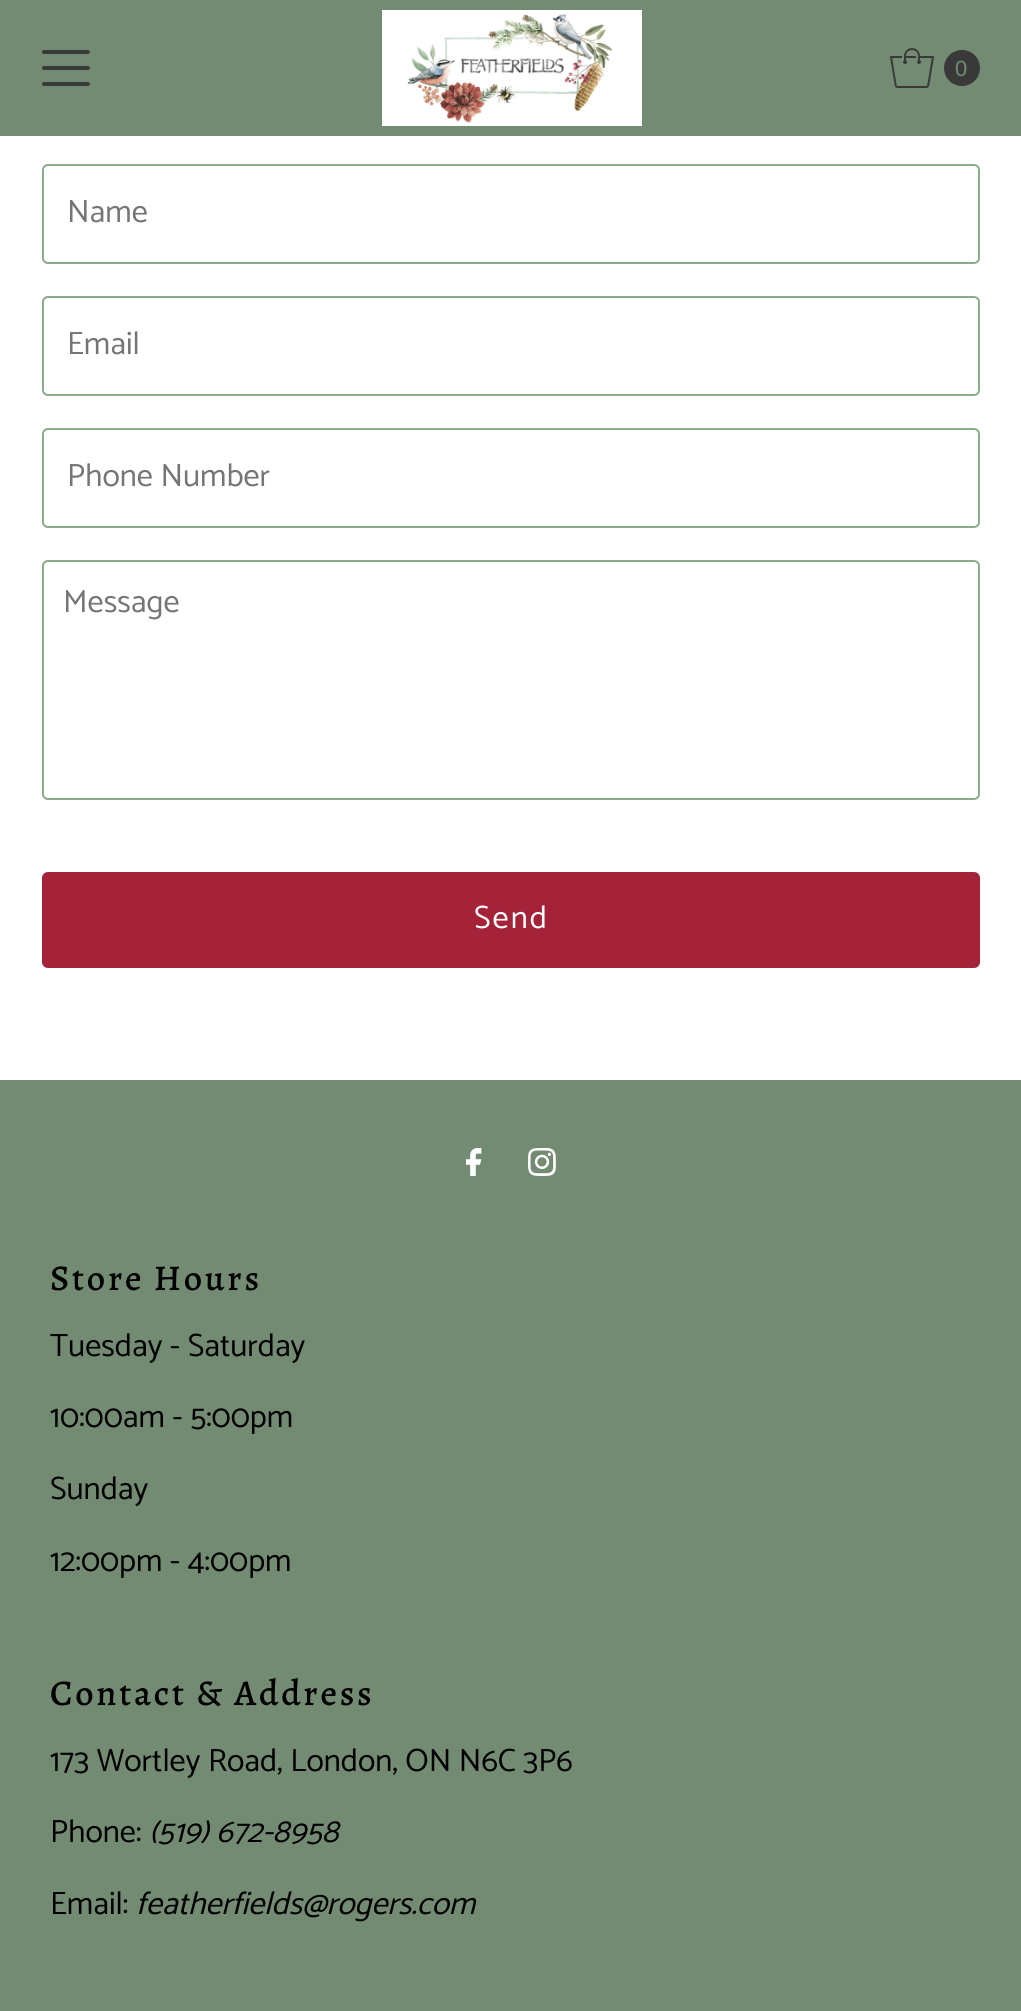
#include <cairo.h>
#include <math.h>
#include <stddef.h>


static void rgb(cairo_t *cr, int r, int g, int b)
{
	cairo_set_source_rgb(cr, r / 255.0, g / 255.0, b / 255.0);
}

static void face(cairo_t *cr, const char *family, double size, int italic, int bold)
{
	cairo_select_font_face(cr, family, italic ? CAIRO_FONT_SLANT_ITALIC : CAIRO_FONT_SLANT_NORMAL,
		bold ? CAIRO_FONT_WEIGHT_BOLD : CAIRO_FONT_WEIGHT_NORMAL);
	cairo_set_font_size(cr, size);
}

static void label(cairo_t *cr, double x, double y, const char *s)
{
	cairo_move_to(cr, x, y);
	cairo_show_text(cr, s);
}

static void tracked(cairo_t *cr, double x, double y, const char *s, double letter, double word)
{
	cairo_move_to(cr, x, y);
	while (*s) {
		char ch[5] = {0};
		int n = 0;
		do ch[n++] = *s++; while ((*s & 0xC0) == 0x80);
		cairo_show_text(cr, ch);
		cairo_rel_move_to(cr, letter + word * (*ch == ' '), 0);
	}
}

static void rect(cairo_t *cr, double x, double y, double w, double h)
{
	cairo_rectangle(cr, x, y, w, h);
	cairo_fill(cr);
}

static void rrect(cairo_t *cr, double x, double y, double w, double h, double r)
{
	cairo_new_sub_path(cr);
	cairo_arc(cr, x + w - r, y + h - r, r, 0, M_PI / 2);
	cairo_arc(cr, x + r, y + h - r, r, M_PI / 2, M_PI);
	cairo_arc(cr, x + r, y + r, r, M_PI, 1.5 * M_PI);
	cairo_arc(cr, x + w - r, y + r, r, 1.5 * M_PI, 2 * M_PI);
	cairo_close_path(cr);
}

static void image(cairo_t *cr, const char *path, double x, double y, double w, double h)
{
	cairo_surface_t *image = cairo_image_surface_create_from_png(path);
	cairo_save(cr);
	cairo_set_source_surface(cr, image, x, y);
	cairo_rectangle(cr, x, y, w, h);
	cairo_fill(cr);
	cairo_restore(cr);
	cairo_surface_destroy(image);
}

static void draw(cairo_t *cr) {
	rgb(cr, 255, 255, 255);
	cairo_paint(cr);
	rgb(cr, 114, 139, 114);
	rect(cr, 0, 0, 1021, 136);
	image(cr, "image0.png", 42, 50, 48, 36);
	image(cr, "image1.png", 382, 10, 260, 116);
	image(cr, "image2.png", 890, 48, 44, 40);
	rgb(cr, 57, 57, 57);
	cairo_arc(cr, 962, 68, 18, 0, 2 * M_PI);
	cairo_fill(cr);
	face(cr, "Liberation Sans", 22, 0, 0);
	rgb(cr, 114, 139, 114);
	label(cr, 955, 76, "0");
	rrect(cr, 43, 165, 936, 98, 5);
	rgb(cr, 140, 171, 140);
	cairo_stroke(cr);
	face(cr, "Catamaran", 32.25, 0, 0);
	rgb(cr, 117, 117, 117);
	label(cr, 67, 222, "Name");
	rrect(cr, 43, 297, 936, 98, 5);
	rgb(cr, 140, 171, 140);
	cairo_stroke(cr);
	rgb(cr, 117, 117, 117);
	label(cr, 67, 354, "Email");
	rrect(cr, 43, 429, 936, 98, 5);
	rgb(cr, 140, 171, 140);
	cairo_stroke(cr);
	rgb(cr, 117, 117, 117);
	label(cr, 67, 486, "Phone Number");
	rrect(cr, 43, 561, 936, 238, 5);
	rgb(cr, 140, 171, 140);
	cairo_stroke(cr);
	rgb(cr, 117, 117, 117);
	label(cr, 63, 612, "Message");
	rgb(cr, 164, 35, 57);
	rrect(cr, 42, 872, 938, 96, 6);
	cairo_fill(cr);
	rgb(cr, 255, 255, 255);
	tracked(cr, 474, 928, "Send", 2, 0);
	rgb(cr, 114, 139, 114);
	rect(cr, 0, 1080, 1021, 931);
	image(cr, "image3.png", 466, 1148, 16, 28);
	image(cr, "image4.png", 528, 1148, 28, 28);
	face(cr, "Alegreya Medium", 36.25, 0, 0);
	rgb(cr, 0, 0, 0);
	tracked(cr, 50, 1290, "Store Hours", 2.75, 0);
	face(cr, "Catamaran", 32.25, 0, 0);
	label(cr, 50, 1356, "Tuesday - Saturday");
	label(cr, 50, 1427, "10:00am - 5:00pm");
	label(cr, 50, 1499, "Sunday");
	label(cr, 50, 1571, "12:00pm - 4:00pm");
	face(cr, "Alegreya Medium", 36.25, 0, 0);
	tracked(cr, 50, 1705, "Contact & Address", 2.75, 0);
	face(cr, "Catamaran", 32.25, 0, 0);
	label(cr, 50, 1771, "173 Wortley Road, London, ON N6C 3P6");
	label(cr, 50, 1842, "Phone:");
	face(cr, "Catamaran", 32.25, 1, 0);
	label(cr, 149, 1842, "(519) 672-8958");
	face(cr, "Catamaran", 32.25, 0, 0);
	label(cr, 50, 1914, "Email:");
	face(cr, "Catamaran", 32.25, 1, 0);
	label(cr, 136, 1914, "featherfields@rogers.com");
}

int main(void) {
	cairo_surface_t *surface = cairo_image_surface_create(CAIRO_FORMAT_RGB24, 1021, 2011);
	cairo_t *cr = cairo_create(surface);
	cairo_font_options_t *options = cairo_font_options_create();
	cairo_font_options_set_hint_metrics(options, CAIRO_HINT_METRICS_OFF);
	cairo_font_options_set_hint_style(options, CAIRO_HINT_STYLE_NONE);
	cairo_set_font_options(cr, options);
	cairo_set_miter_limit(cr, 4);
	draw(cr);
	cairo_surface_write_to_png(surface, "render.png");
	cairo_font_options_destroy(options);
	cairo_destroy(cr);
	cairo_surface_destroy(surface);
	return 0;
}
